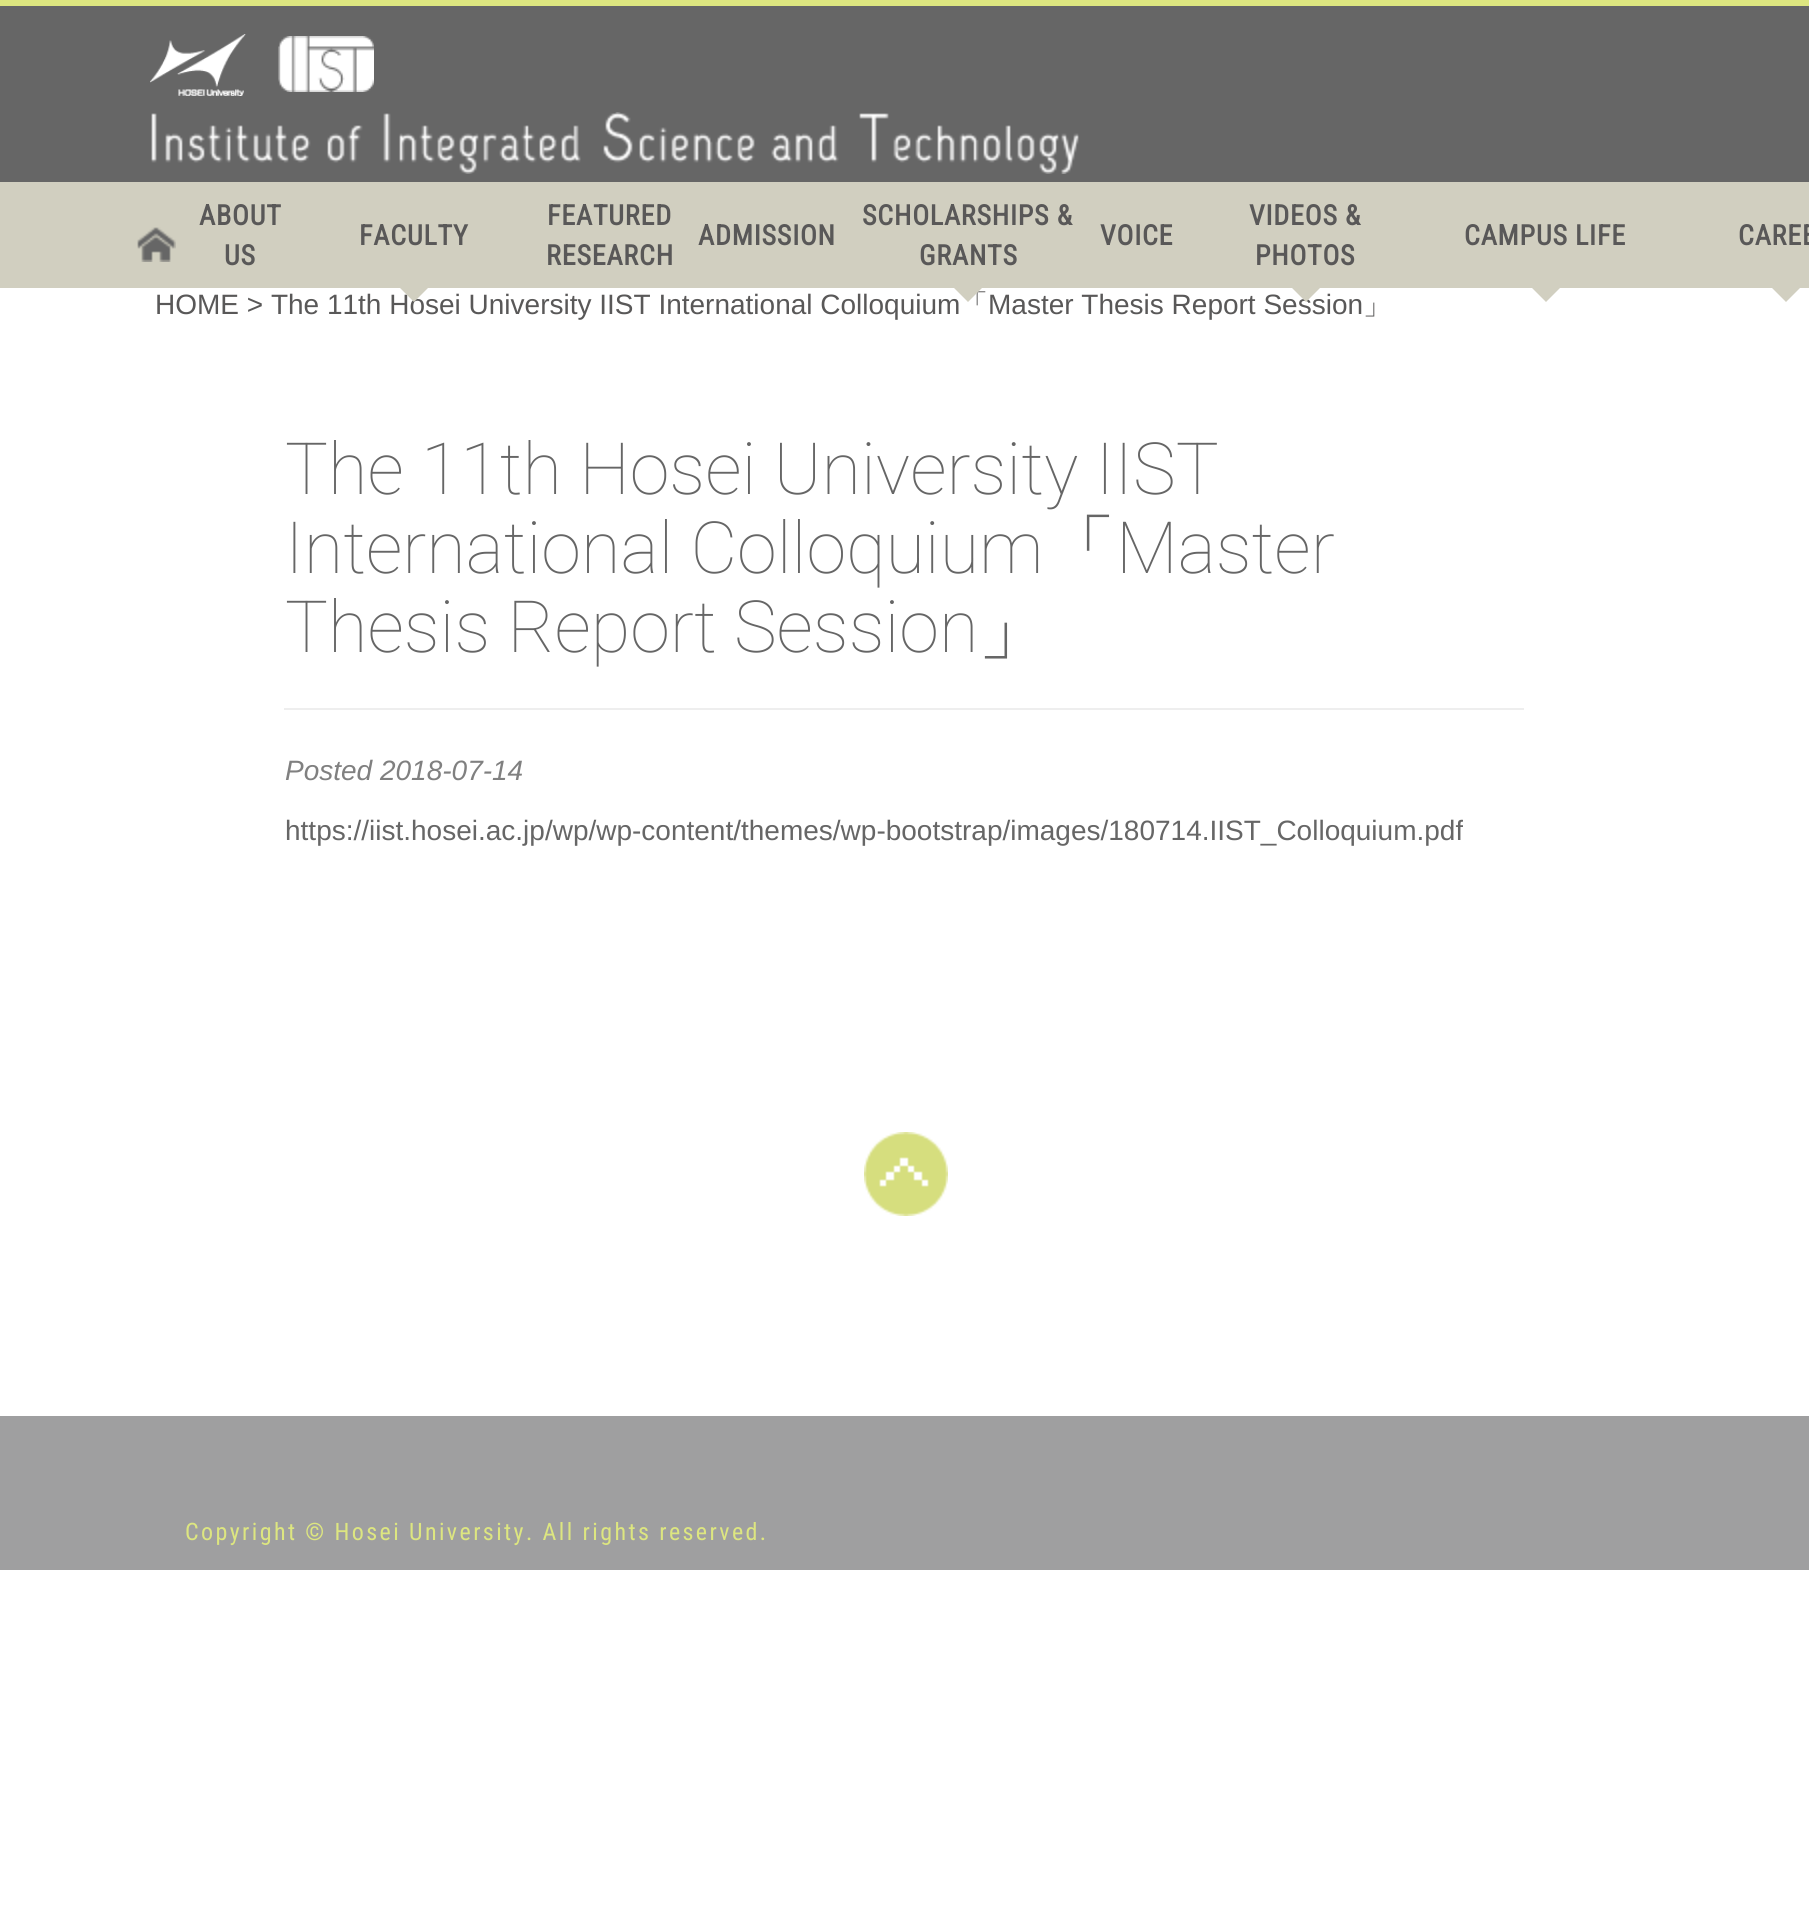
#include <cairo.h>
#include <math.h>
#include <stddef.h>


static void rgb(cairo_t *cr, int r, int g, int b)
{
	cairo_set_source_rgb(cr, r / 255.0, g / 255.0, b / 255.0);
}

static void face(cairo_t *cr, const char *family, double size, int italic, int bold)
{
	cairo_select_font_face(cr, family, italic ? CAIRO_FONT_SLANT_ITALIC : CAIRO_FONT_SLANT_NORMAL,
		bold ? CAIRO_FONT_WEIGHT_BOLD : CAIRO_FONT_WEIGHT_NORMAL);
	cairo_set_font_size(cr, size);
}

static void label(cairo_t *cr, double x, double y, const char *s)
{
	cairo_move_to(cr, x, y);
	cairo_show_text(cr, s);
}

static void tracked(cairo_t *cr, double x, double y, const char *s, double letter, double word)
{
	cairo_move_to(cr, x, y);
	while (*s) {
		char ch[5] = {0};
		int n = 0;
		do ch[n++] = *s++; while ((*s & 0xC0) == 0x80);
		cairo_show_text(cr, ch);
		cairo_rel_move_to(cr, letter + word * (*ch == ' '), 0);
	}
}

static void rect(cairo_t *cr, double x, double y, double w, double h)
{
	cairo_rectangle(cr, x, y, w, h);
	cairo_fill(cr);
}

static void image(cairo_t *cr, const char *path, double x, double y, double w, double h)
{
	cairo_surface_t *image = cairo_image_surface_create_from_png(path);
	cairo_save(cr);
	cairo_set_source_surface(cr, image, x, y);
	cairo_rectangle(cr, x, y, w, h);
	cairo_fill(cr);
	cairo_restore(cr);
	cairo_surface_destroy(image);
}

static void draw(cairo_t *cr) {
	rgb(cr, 255, 255, 255);
	cairo_paint(cr);
	rgb(cr, 102, 102, 102);
	rect(cr, 0, 6, 1809, 176);
	rgb(cr, 221, 230, 128);
	rect(cr, 0, 0, 1809, 6);
	image(cr, "image0.png", 150, 34, 96, 62);
	image(cr, "image1.png", 278, 36, 96, 56);
	image(cr, "image2.png", 151, 112, 928, 62);
	rgb(cr, 209, 207, 192);
	rect(cr, 0, 182, 1809, 106);
	image(cr, "image3.png", 137, 227, 39, 35);
	face(cr, "Roboto Condensed", 28, 0, 1);
	rgb(cr, 89, 88, 88);
	tracked(cr, 199, 225, "ABOUT", 0.8, 0);
	tracked(cr, 224, 265, "US", 0.8, 0);
	tracked(cr, 359, 245, "FACULTY", 0.8, 0);
	face(cr, "Liberation Sans", 28, 0, 0);
	label(cr, 155, 314, "HOME > The 11th Hosei University IIST International Colloquium");
	rgb(cr, 209, 207, 192);
	cairo_new_path(cr);
	cairo_move_to(cr, 400, 288);
	cairo_line_to(cr, 428, 288);
	cairo_line_to(cr, 414, 302);
	cairo_close_path(cr);
	cairo_fill(cr);
	face(cr, "Roboto Condensed", 28, 0, 1);
	rgb(cr, 89, 88, 88);
	tracked(cr, 547, 225, "FEATURED", 0.8, 0);
	tracked(cr, 546, 265, "RESEARCH", 0.8, 0);
	tracked(cr, 698, 245, "ADMISSION", 0.8, 0);
	tracked(cr, 862, 225, "SCHOLARSHIPS &", 0.8, 0);
	tracked(cr, 919, 265, "GRANTS", 0.8, 0);
	face(cr, "WenQuanYi Zen Hei Medium", 28, 0, 0);
	label(cr, 960, 314, "「");
	rgb(cr, 209, 207, 192);
	cairo_new_path(cr);
	cairo_move_to(cr, 954, 288);
	cairo_line_to(cr, 982, 288);
	cairo_line_to(cr, 968, 302);
	cairo_close_path(cr);
	cairo_fill(cr);
	face(cr, "Roboto Condensed", 28, 0, 1);
	rgb(cr, 89, 88, 88);
	tracked(cr, 1100, 245, "VOICE", 0.8, 0);
	tracked(cr, 1249, 225, "VIDEOS &", 0.8, 0);
	tracked(cr, 1255, 265, "PHOTOS", 0.8, 0);
	face(cr, "Liberation Sans", 28, 0, 0);
	label(cr, 988, 314, "Master Thesis Report Session");
	rgb(cr, 209, 207, 192);
	cairo_new_path(cr);
	cairo_move_to(cr, 1292, 288);
	cairo_line_to(cr, 1320, 288);
	cairo_line_to(cr, 1306, 302);
	cairo_close_path(cr);
	cairo_fill(cr);
	face(cr, "Roboto Condensed", 28, 0, 1);
	rgb(cr, 89, 88, 88);
	tracked(cr, 1464, 245, "CAMPUS LIFE", 0.8, 0);
	rgb(cr, 209, 207, 192);
	cairo_new_path(cr);
	cairo_move_to(cr, 1532, 288);
	cairo_line_to(cr, 1560, 288);
	cairo_line_to(cr, 1546, 302);
	cairo_close_path(cr);
	cairo_fill(cr);
	rgb(cr, 89, 88, 88);
	tracked(cr, 1738, 245, "CAREE", 0.8, 0);
	rgb(cr, 209, 207, 192);
	cairo_new_path(cr);
	cairo_move_to(cr, 1772, 288);
	cairo_line_to(cr, 1800, 288);
	cairo_line_to(cr, 1786, 302);
	cairo_close_path(cr);
	cairo_fill(cr);
	face(cr, "WenQuanYi Zen Hei Medium", 28, 0, 0);
	rgb(cr, 89, 88, 88);
	label(cr, 1363, 314, "」");
	rgb(cr, 238, 238, 238);
	rect(cr, 284, 708, 1240, 2);
	face(cr, "Roboto Thin", 72, 0, 0);
	rgb(cr, 102, 102, 102);
	label(cr, 285, 494, "The 11th Hosei University IIST");
	label(cr, 285, 573, "International Colloquium");
	face(cr, "WenQuanYi Zen Hei Medium", 72, 0, 0);
	label(cr, 1044, 573, "「");
	face(cr, "Roboto Thin", 72, 0, 0);
	label(cr, 1116, 573, "Master");
	label(cr, 285, 652, "Thesis Report Session");
	face(cr, "WenQuanYi Zen Hei Medium", 72, 0, 0);
	label(cr, 978, 652, "」");
	face(cr, "Liberation Sans", 28, 1, 0);
	rgb(cr, 128, 128, 128);
	label(cr, 285, 780, "Posted 2018-07-14");
	face(cr, "Liberation Sans", 28, 0, 0);
	rgb(cr, 102, 102, 102);
	label(cr, 285, 840, "https://iist.hosei.ac.jp/wp/wp-content/themes/wp-bootstrap/images/180714.IIST_Colloquium.pdf");
	image(cr, "image4.png", 864, 1132, 84, 84);
	rgb(cr, 159, 159, 160);
	rect(cr, 0, 1416, 1809, 154);
	face(cr, "Roboto Condensed", 24, 0, 0);
	rgb(cr, 221, 230, 128);
	tracked(cr, 185, 1540, "Copyright © Hosei University. All rights reserved.", 2.4, 0);
}

int main(void) {
	cairo_surface_t *surface = cairo_image_surface_create(CAIRO_FORMAT_RGB24, 1809, 1923);
	cairo_t *cr = cairo_create(surface);
	cairo_font_options_t *options = cairo_font_options_create();
	cairo_font_options_set_hint_metrics(options, CAIRO_HINT_METRICS_OFF);
	cairo_font_options_set_hint_style(options, CAIRO_HINT_STYLE_NONE);
	cairo_set_font_options(cr, options);
	cairo_set_miter_limit(cr, 4);
	draw(cr);
	cairo_surface_write_to_png(surface, "render.png");
	cairo_font_options_destroy(options);
	cairo_destroy(cr);
	cairo_surface_destroy(surface);
	return 0;
}
